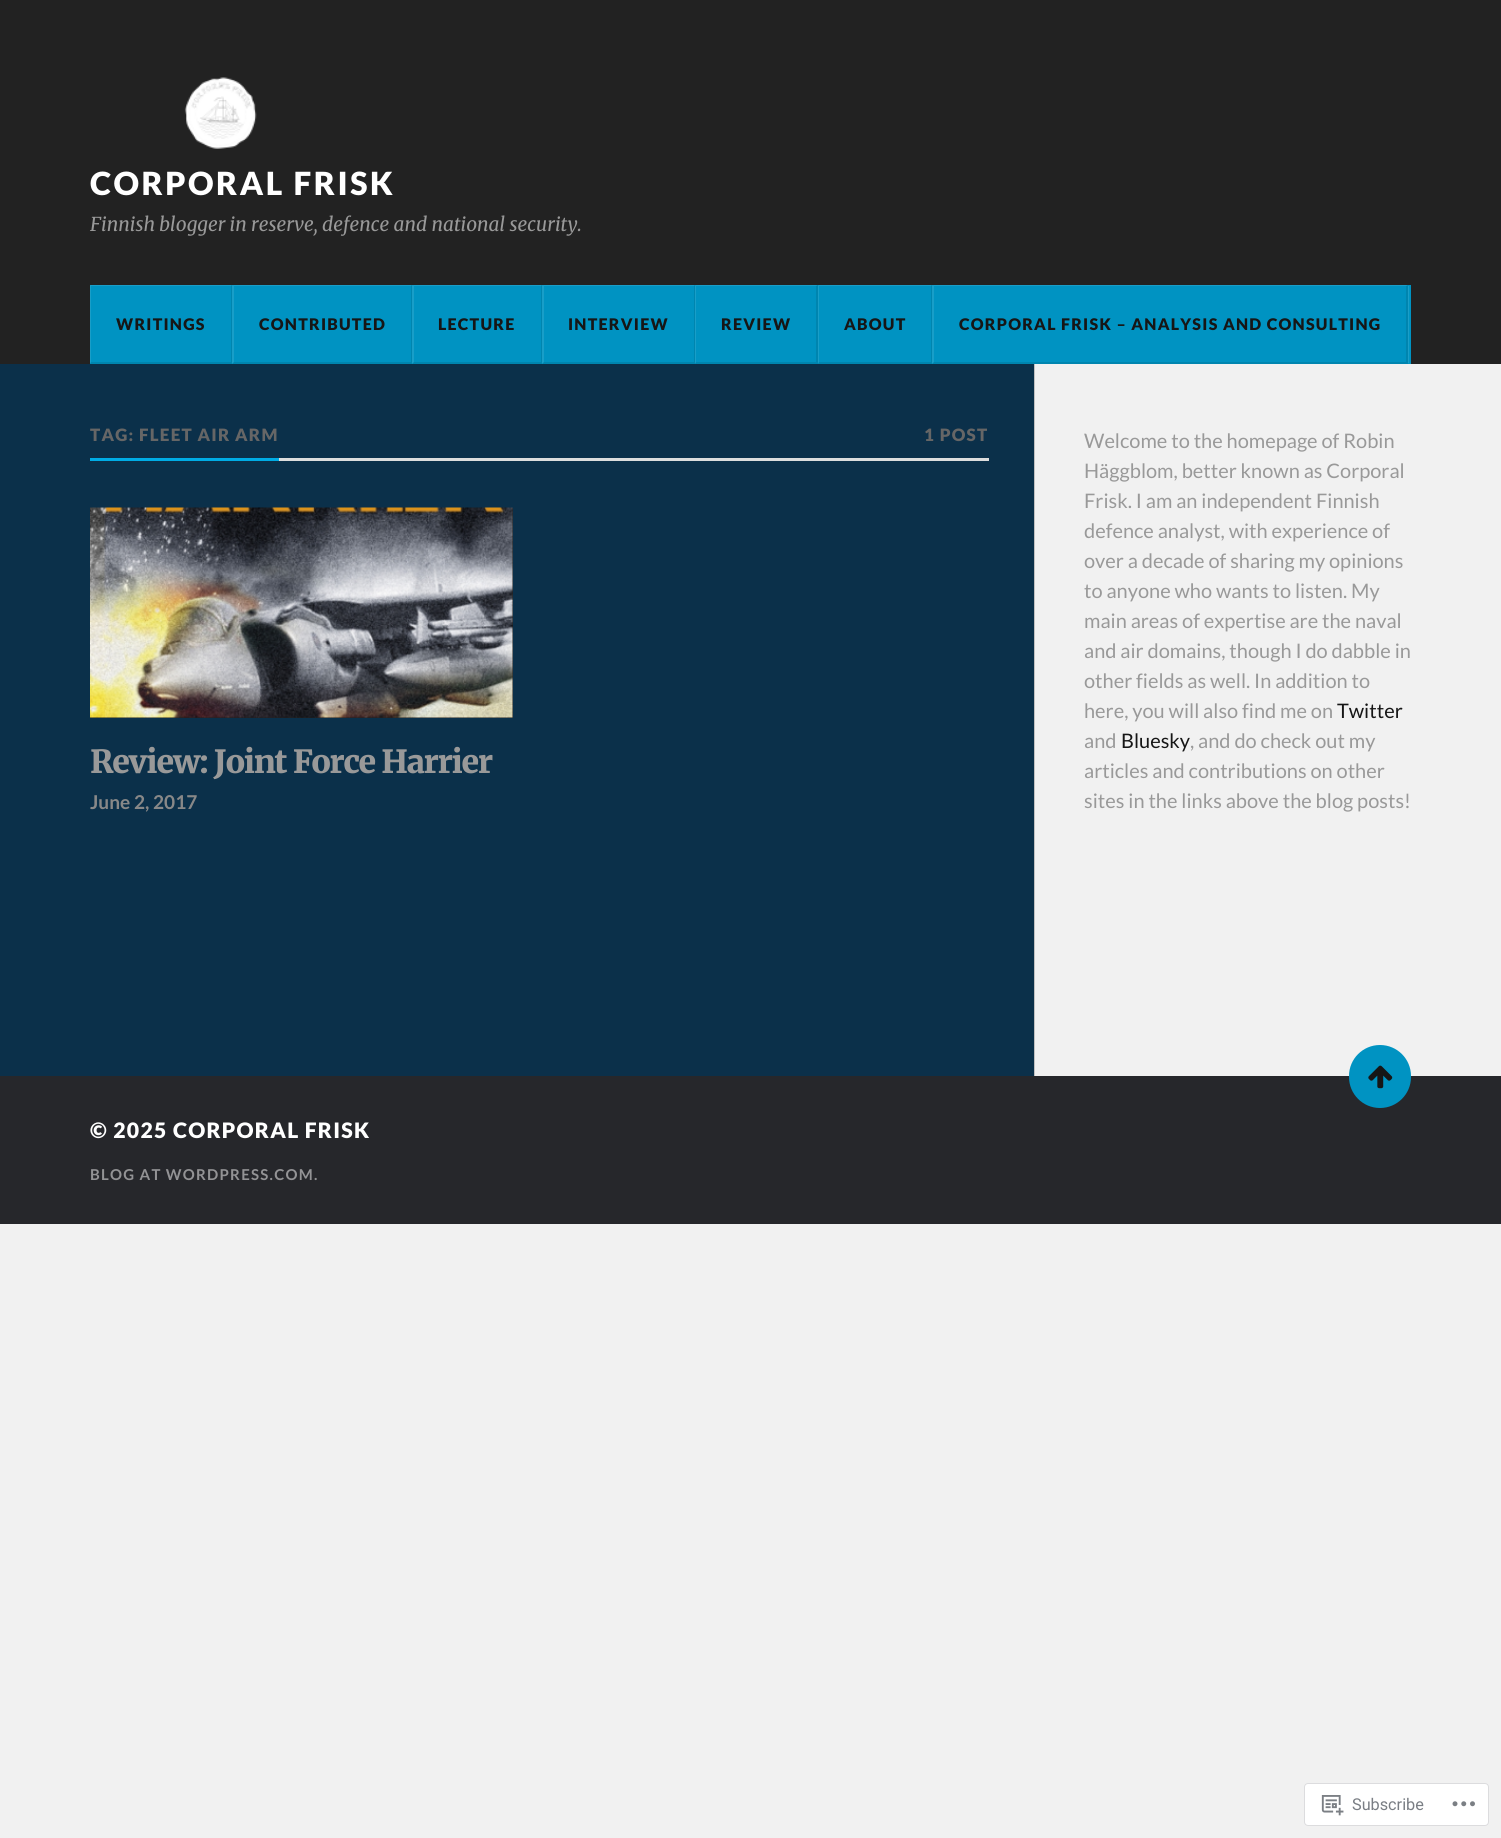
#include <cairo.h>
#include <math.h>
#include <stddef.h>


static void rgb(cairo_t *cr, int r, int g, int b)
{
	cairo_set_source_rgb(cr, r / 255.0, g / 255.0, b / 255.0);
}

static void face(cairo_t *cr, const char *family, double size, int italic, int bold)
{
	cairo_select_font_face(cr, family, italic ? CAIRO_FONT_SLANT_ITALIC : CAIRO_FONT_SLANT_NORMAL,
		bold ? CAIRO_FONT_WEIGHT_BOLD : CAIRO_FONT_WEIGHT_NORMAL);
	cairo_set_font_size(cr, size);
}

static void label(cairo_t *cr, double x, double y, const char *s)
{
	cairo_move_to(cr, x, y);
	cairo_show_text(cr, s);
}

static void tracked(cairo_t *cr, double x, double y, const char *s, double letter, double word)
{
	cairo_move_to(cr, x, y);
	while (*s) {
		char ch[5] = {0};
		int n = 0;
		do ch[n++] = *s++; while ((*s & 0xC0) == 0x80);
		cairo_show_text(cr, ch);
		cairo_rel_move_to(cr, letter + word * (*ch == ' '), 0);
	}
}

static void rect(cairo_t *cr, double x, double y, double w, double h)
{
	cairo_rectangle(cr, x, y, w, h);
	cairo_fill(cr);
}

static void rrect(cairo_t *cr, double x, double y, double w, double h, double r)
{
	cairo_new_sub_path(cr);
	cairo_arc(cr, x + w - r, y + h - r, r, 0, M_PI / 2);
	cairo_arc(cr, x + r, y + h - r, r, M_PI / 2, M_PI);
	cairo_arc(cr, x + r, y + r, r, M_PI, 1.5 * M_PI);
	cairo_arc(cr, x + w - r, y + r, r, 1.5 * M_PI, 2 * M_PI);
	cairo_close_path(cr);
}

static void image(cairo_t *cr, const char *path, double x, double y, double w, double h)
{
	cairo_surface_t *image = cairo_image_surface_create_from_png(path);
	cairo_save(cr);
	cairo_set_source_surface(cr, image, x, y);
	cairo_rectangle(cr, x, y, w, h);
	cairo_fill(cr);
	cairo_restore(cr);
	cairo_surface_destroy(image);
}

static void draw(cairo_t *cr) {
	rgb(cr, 241, 241, 241);
	cairo_paint(cr);
	rgb(cr, 34, 34, 34);
	rect(cr, 0, 0, 1501, 364);
	image(cr, "image0.png", 184, 77, 73, 72);
	face(cr, "Lato Black", 31.9, 0, 0);
	rgb(cr, 255, 255, 255);
	tracked(cr, 90, 195, "CORPORAL FRISK", 2.5, 0);
	face(cr, "Merriweather Light", 19.1, 1, 0);
	rgb(cr, 153, 153, 153);
	label(cr, 90, 231, "Finnish blogger in reserve, defence and national security.");
	rgb(cr, 0, 147, 194);
	rect(cr, 90, 285, 1321, 79);
	rgb(cr, 26, 158, 200);
	cairo_new_path(cr);
	cairo_move_to(cr, 90, 285);
	cairo_line_to(cr, 232, 285);
	cairo_line_to(cr, 231, 286);
	cairo_line_to(cr, 91, 286);
	cairo_close_path(cr);
	cairo_fill(cr);
	cairo_set_source_rgba(cr, 0, 0, 0, 0.1);
	cairo_new_path(cr);
	cairo_move_to(cr, 232, 285);
	cairo_line_to(cr, 232, 364);
	cairo_line_to(cr, 231, 362);
	cairo_line_to(cr, 231, 286);
	cairo_close_path(cr);
	cairo_fill(cr);
	cairo_new_path(cr);
	cairo_move_to(cr, 232, 364);
	cairo_line_to(cr, 90, 364);
	cairo_line_to(cr, 91, 362);
	cairo_line_to(cr, 231, 362);
	cairo_close_path(cr);
	cairo_fill(cr);
	cairo_set_source_rgba(cr, 1, 1, 1, 0.1);
	cairo_new_path(cr);
	cairo_move_to(cr, 90, 364);
	cairo_line_to(cr, 90, 285);
	cairo_line_to(cr, 91, 286);
	cairo_line_to(cr, 91, 362);
	cairo_close_path(cr);
	cairo_fill(cr);
	face(cr, "Lato Black", 16, 0, 0);
	rgb(cr, 22, 22, 22);
	tracked(cr, 116, 330, "WRITINGS", 1.25, 0);
	rgb(cr, 26, 158, 200);
	cairo_new_path(cr);
	cairo_move_to(cr, 232, 285);
	cairo_line_to(cr, 412, 285);
	cairo_line_to(cr, 411, 286);
	cairo_line_to(cr, 234, 286);
	cairo_close_path(cr);
	cairo_fill(cr);
	cairo_set_source_rgba(cr, 0, 0, 0, 0.1);
	cairo_new_path(cr);
	cairo_move_to(cr, 412, 285);
	cairo_line_to(cr, 412, 364);
	cairo_line_to(cr, 411, 362);
	cairo_line_to(cr, 411, 286);
	cairo_close_path(cr);
	cairo_fill(cr);
	cairo_new_path(cr);
	cairo_move_to(cr, 412, 364);
	cairo_line_to(cr, 232, 364);
	cairo_line_to(cr, 234, 362);
	cairo_line_to(cr, 411, 362);
	cairo_close_path(cr);
	cairo_fill(cr);
	cairo_set_source_rgba(cr, 1, 1, 1, 0.1);
	cairo_new_path(cr);
	cairo_move_to(cr, 232, 364);
	cairo_line_to(cr, 232, 285);
	cairo_line_to(cr, 234, 286);
	cairo_line_to(cr, 234, 362);
	cairo_close_path(cr);
	cairo_fill(cr);
	rgb(cr, 22, 22, 22);
	tracked(cr, 259, 330, "CONTRIBUTED", 1.25, 0);
	rgb(cr, 26, 158, 200);
	cairo_new_path(cr);
	cairo_move_to(cr, 412, 285);
	cairo_line_to(cr, 542, 285);
	cairo_line_to(cr, 541, 286);
	cairo_line_to(cr, 414, 286);
	cairo_close_path(cr);
	cairo_fill(cr);
	cairo_set_source_rgba(cr, 0, 0, 0, 0.1);
	cairo_new_path(cr);
	cairo_move_to(cr, 542, 285);
	cairo_line_to(cr, 542, 364);
	cairo_line_to(cr, 541, 362);
	cairo_line_to(cr, 541, 286);
	cairo_close_path(cr);
	cairo_fill(cr);
	cairo_new_path(cr);
	cairo_move_to(cr, 542, 364);
	cairo_line_to(cr, 412, 364);
	cairo_line_to(cr, 414, 362);
	cairo_line_to(cr, 541, 362);
	cairo_close_path(cr);
	cairo_fill(cr);
	cairo_set_source_rgba(cr, 1, 1, 1, 0.1);
	cairo_new_path(cr);
	cairo_move_to(cr, 412, 364);
	cairo_line_to(cr, 412, 285);
	cairo_line_to(cr, 414, 286);
	cairo_line_to(cr, 414, 362);
	cairo_close_path(cr);
	cairo_fill(cr);
	rgb(cr, 22, 22, 22);
	tracked(cr, 438, 330, "LECTURE", 1.25, 0);
	rgb(cr, 26, 158, 200);
	cairo_new_path(cr);
	cairo_move_to(cr, 542, 285);
	cairo_line_to(cr, 695, 285);
	cairo_line_to(cr, 694, 286);
	cairo_line_to(cr, 544, 286);
	cairo_close_path(cr);
	cairo_fill(cr);
	cairo_set_source_rgba(cr, 0, 0, 0, 0.1);
	cairo_new_path(cr);
	cairo_move_to(cr, 695, 285);
	cairo_line_to(cr, 695, 364);
	cairo_line_to(cr, 694, 362);
	cairo_line_to(cr, 694, 286);
	cairo_close_path(cr);
	cairo_fill(cr);
	cairo_new_path(cr);
	cairo_move_to(cr, 695, 364);
	cairo_line_to(cr, 542, 364);
	cairo_line_to(cr, 544, 362);
	cairo_line_to(cr, 694, 362);
	cairo_close_path(cr);
	cairo_fill(cr);
	cairo_set_source_rgba(cr, 1, 1, 1, 0.1);
	cairo_new_path(cr);
	cairo_move_to(cr, 542, 364);
	cairo_line_to(cr, 542, 285);
	cairo_line_to(cr, 544, 286);
	cairo_line_to(cr, 544, 362);
	cairo_close_path(cr);
	cairo_fill(cr);
	rgb(cr, 22, 22, 22);
	tracked(cr, 568, 330, "INTERVIEW", 1.25, 0);
	rgb(cr, 26, 158, 200);
	cairo_new_path(cr);
	cairo_move_to(cr, 695, 285);
	cairo_line_to(cr, 818, 285);
	cairo_line_to(cr, 816, 286);
	cairo_line_to(cr, 696, 286);
	cairo_close_path(cr);
	cairo_fill(cr);
	cairo_set_source_rgba(cr, 0, 0, 0, 0.1);
	cairo_new_path(cr);
	cairo_move_to(cr, 818, 285);
	cairo_line_to(cr, 818, 364);
	cairo_line_to(cr, 816, 362);
	cairo_line_to(cr, 816, 286);
	cairo_close_path(cr);
	cairo_fill(cr);
	cairo_new_path(cr);
	cairo_move_to(cr, 818, 364);
	cairo_line_to(cr, 695, 364);
	cairo_line_to(cr, 696, 362);
	cairo_line_to(cr, 816, 362);
	cairo_close_path(cr);
	cairo_fill(cr);
	cairo_set_source_rgba(cr, 1, 1, 1, 0.1);
	cairo_new_path(cr);
	cairo_move_to(cr, 695, 364);
	cairo_line_to(cr, 695, 285);
	cairo_line_to(cr, 696, 286);
	cairo_line_to(cr, 696, 362);
	cairo_close_path(cr);
	cairo_fill(cr);
	rgb(cr, 22, 22, 22);
	tracked(cr, 721, 330, "REVIEW", 1.25, 0);
	rgb(cr, 26, 158, 200);
	cairo_new_path(cr);
	cairo_move_to(cr, 818, 285);
	cairo_line_to(cr, 932, 285);
	cairo_line_to(cr, 931, 286);
	cairo_line_to(cr, 819, 286);
	cairo_close_path(cr);
	cairo_fill(cr);
	cairo_set_source_rgba(cr, 0, 0, 0, 0.1);
	cairo_new_path(cr);
	cairo_move_to(cr, 932, 285);
	cairo_line_to(cr, 932, 364);
	cairo_line_to(cr, 931, 362);
	cairo_line_to(cr, 931, 286);
	cairo_close_path(cr);
	cairo_fill(cr);
	cairo_new_path(cr);
	cairo_move_to(cr, 932, 364);
	cairo_line_to(cr, 818, 364);
	cairo_line_to(cr, 819, 362);
	cairo_line_to(cr, 931, 362);
	cairo_close_path(cr);
	cairo_fill(cr);
	cairo_set_source_rgba(cr, 1, 1, 1, 0.1);
	cairo_new_path(cr);
	cairo_move_to(cr, 818, 364);
	cairo_line_to(cr, 818, 285);
	cairo_line_to(cr, 819, 286);
	cairo_line_to(cr, 819, 362);
	cairo_close_path(cr);
	cairo_fill(cr);
	rgb(cr, 22, 22, 22);
	tracked(cr, 844, 330, "ABOUT", 1.25, 0);
	rgb(cr, 26, 158, 200);
	cairo_new_path(cr);
	cairo_move_to(cr, 932, 285);
	cairo_line_to(cr, 1408, 285);
	cairo_line_to(cr, 1406, 286);
	cairo_line_to(cr, 934, 286);
	cairo_close_path(cr);
	cairo_fill(cr);
	cairo_set_source_rgba(cr, 0, 0, 0, 0.1);
	cairo_new_path(cr);
	cairo_move_to(cr, 1408, 285);
	cairo_line_to(cr, 1408, 364);
	cairo_line_to(cr, 1406, 362);
	cairo_line_to(cr, 1406, 286);
	cairo_close_path(cr);
	cairo_fill(cr);
	cairo_new_path(cr);
	cairo_move_to(cr, 1408, 364);
	cairo_line_to(cr, 932, 364);
	cairo_line_to(cr, 934, 362);
	cairo_line_to(cr, 1406, 362);
	cairo_close_path(cr);
	cairo_fill(cr);
	cairo_set_source_rgba(cr, 1, 1, 1, 0.1);
	cairo_new_path(cr);
	cairo_move_to(cr, 932, 364);
	cairo_line_to(cr, 932, 285);
	cairo_line_to(cr, 934, 286);
	cairo_line_to(cr, 934, 362);
	cairo_close_path(cr);
	cairo_fill(cr);
	rgb(cr, 22, 22, 22);
	tracked(cr, 959, 330, "CORPORAL FRISK – ANALYSIS AND CONSULTING", 1.25, 0);
	rgb(cr, 26, 158, 200);
	rect(cr, 1408, 286, 1, 77);
	rgb(cr, 11, 48, 74);
	rect(cr, 0, 364, 1034, 712);
	rgb(cr, 221, 221, 221);
	rect(cr, 279, 458, 710, 3);
	rgb(cr, 0, 172, 229);
	rect(cr, 90, 458, 189, 3);
	face(cr, "Lato Black", 17, 0, 0);
	rgb(cr, 102, 102, 102);
	tracked(cr, 90, 441, "TAG: FLEET AIR ARM", 1.25, 0);
	tracked(cr, 924, 441, "1 POST", 1.25, 0);
	rgb(cr, 34, 34, 34);
	rect(cr, 90, 508, 423, 210);
	image(cr, "image1.png", 90, 507, 423, 211);
	face(cr, "Merriweather Black", 31.9, 0, 0);
	rgb(cr, 153, 153, 153);
	tracked(cr, 90, 773, "Review: Joint Force Harrier", -1.25, 0);
	face(cr, "Lato", 19.1, 0, 1);
	rgb(cr, 136, 136, 136);
	label(cr, 90, 809, "June 2, 2017");
	rgb(cr, 193, 193, 193);
	rect(cr, 1034, 364, 1, 712);
	face(cr, "Lato", 20, 0, 0);
	rgb(cr, 153, 153, 153);
	label(cr, 1084, 448, "Welcome to the homepage of Robin");
	label(cr, 1084, 478, "Häggblom, better known as Corporal");
	label(cr, 1084, 508, "Frisk. I am an independent Finnish");
	label(cr, 1084, 538, "defence analyst, with experience of");
	label(cr, 1084, 568, "over a decade of sharing my opinions");
	label(cr, 1084, 598, "to anyone who wants to listen. My");
	label(cr, 1084, 628, "main areas of expertise are the naval");
	label(cr, 1084, 658, "and air domains, though I do dabble in");
	label(cr, 1084, 688, "other fields as well. In addition to");
	label(cr, 1084, 718, "here, you will also find me on");
	rgb(cr, 22, 22, 22);
	label(cr, 1337, 718, "Twitter");
	rgb(cr, 153, 153, 153);
	label(cr, 1084, 748, "and");
	rgb(cr, 22, 22, 22);
	label(cr, 1121, 748, "Bluesky");
	rgb(cr, 153, 153, 153);
	label(cr, 1190, 748, ", and do check out my");
	label(cr, 1084, 778, "articles and contributions on other");
	label(cr, 1084, 808, "sites in the links above the blog posts!");
	rgb(cr, 38, 39, 43);
	rect(cr, 0, 1076, 1501, 148);
	rgb(cr, 0, 147, 194);
	rrect(cr, 1349, 1045, 62, 63, 31);
	cairo_fill(cr);
	image(cr, "image2.png", 1368, 1065, 25, 24);
	face(cr, "Lato Black", 21.25, 0, 0);
	rgb(cr, 255, 255, 255);
	tracked(cr, 90, 1138, "© 2025 CORPORAL FRISK", 1.25, 0);
	face(cr, "Lato", 15, 0, 1);
	rgb(cr, 147, 147, 149);
	tracked(cr, 90, 1180, "BLOG AT WORDPRESS.COM.", 1.25, 0);
	rgb(cr, 255, 255, 255);
	rrect(cr, 1304.5, 1783.5, 184, 42, 3.5);
	cairo_fill_preserve(cr);
	rgb(cr, 220, 220, 222);
	cairo_set_line_width(cr, 1);
	cairo_stroke(cr);
	image(cr, "image3.png", 1321, 1795, 23, 21);
	face(cr, "Roboto", 16.25, 0, 0);
	rgb(cr, 122, 126, 132);
	label(cr, 1352, 1810, "Subscribe");
	image(cr, "image4.png", 1452, 1801, 23, 6);
}

int main(void) {
	cairo_surface_t *surface = cairo_image_surface_create(CAIRO_FORMAT_RGB24, 1501, 1838);
	cairo_t *cr = cairo_create(surface);
	cairo_font_options_t *options = cairo_font_options_create();
	cairo_font_options_set_hint_metrics(options, CAIRO_HINT_METRICS_OFF);
	cairo_font_options_set_hint_style(options, CAIRO_HINT_STYLE_NONE);
	cairo_set_font_options(cr, options);
	cairo_set_miter_limit(cr, 4);
	draw(cr);
	cairo_surface_write_to_png(surface, "render.png");
	cairo_font_options_destroy(options);
	cairo_destroy(cr);
	cairo_surface_destroy(surface);
	return 0;
}
